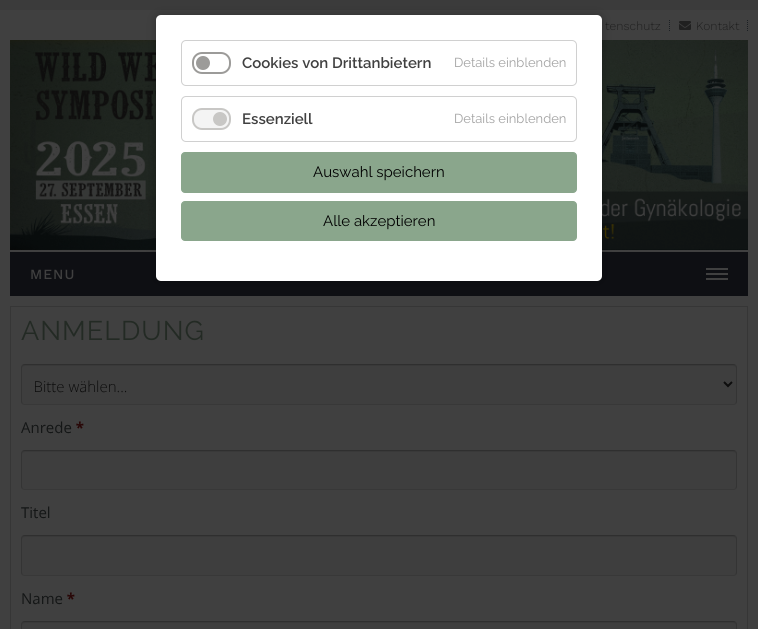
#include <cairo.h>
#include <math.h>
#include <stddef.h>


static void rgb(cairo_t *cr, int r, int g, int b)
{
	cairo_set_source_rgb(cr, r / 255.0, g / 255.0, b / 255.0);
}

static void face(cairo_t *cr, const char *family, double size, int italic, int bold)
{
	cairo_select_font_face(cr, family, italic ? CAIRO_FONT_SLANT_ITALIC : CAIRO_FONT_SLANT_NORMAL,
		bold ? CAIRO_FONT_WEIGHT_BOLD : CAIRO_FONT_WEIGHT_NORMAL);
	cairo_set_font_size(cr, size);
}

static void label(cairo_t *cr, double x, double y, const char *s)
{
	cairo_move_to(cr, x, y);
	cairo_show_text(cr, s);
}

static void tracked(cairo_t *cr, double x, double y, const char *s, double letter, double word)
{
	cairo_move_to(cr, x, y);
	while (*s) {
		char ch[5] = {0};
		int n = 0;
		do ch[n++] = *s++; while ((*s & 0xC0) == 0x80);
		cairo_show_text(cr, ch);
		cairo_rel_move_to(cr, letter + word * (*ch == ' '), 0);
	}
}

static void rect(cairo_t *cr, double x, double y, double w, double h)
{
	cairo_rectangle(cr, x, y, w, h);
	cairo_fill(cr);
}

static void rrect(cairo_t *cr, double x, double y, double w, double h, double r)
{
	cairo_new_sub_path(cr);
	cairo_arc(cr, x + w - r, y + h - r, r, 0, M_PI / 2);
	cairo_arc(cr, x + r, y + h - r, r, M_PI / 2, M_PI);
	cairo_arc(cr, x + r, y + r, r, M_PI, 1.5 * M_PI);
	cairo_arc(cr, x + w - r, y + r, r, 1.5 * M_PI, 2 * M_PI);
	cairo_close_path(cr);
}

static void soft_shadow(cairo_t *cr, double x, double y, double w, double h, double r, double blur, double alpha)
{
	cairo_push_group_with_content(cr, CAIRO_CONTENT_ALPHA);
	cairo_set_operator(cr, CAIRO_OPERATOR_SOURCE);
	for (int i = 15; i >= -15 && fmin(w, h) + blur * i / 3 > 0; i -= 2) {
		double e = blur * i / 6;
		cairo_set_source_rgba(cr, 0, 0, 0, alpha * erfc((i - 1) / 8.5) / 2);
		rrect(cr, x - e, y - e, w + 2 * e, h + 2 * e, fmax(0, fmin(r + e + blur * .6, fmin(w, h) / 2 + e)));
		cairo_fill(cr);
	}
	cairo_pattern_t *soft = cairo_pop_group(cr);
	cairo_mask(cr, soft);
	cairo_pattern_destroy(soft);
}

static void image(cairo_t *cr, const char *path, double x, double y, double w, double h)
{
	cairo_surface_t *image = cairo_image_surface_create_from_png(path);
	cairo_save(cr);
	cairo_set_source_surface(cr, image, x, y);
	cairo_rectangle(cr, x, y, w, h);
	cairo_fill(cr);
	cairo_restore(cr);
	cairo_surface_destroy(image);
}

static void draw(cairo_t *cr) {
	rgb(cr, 59, 59, 59);
	cairo_paint(cr);
	rgb(cr, 64, 64, 64);
	rect(cr, 0, 10, 758, 619);
	cairo_new_path(cr);
	cairo_move_to(cr, 747.5, 20);
	cairo_line_to(cr, 747.5, 32);
	rgb(cr, 28, 32, 36);
	cairo_set_line_width(cr, 1);
	cairo_set_dash(cr, (double[]){1, 1}, 2, 0);
	cairo_stroke(cr);
	face(cr, "Work Sans Light", 12, 0, 0);
	rgb(cr, 32, 32, 32);
	label(cr, 605, 30, "tenschutz");
	cairo_new_path(cr);
	cairo_move_to(cr, 669.5, 20);
	cairo_line_to(cr, 669.5, 32);
	rgb(cr, 28, 32, 36);
	cairo_stroke(cr);
	image(cr, "image0.png", 679, 21, 12, 9);
	rgb(cr, 32, 32, 32);
	label(cr, 696, 30, "Kontakt");
	image(cr, "image1.png", 10, 40, 738, 210);
	rgb(cr, 14, 15, 19);
	rect(cr, 10, 252, 738, 44);
	face(cr, "Work Sans Medium", 14, 0, 0);
	rgb(cr, 64, 64, 64);
	tracked(cr, 30, 279, "MENU", 1, 0);
	rect(cr, 706, 268, 22, 2);
	rect(cr, 706, 273, 22, 2);
	rect(cr, 706, 278, 22, 2);
	cairo_rectangle(cr, 10.5, 306.5, 737, 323);
	rgb(cr, 54, 54, 54);
	cairo_set_dash(cr, NULL, 0, 0);
	cairo_stroke(cr);
	face(cr, "Raleway Thin", 27, 0, 0);
	rgb(cr, 35, 42, 36);
	tracked(cr, 21, 340, "ANMELDUNG", 1, 0);
	image(cr, "image2.png", 21, 364, 716, 265);
	rgb(cr, 0, 0, 0);
	soft_shadow(cr, 156, 15, 446, 266, 5, 5, 0.25);
	rgb(cr, 255, 255, 255);
	rrect(cr, 156, 15, 446, 266, 5);
	cairo_fill(cr);
	rrect(cr, 181.5, 40.5, 395, 45, 4.5);
	rgb(cr, 208, 208, 208);
	cairo_stroke(cr);
	rrect(cr, 193, 53, 37, 20, 9);
	rgb(cr, 156, 155, 153);
	cairo_set_line_width(cr, 2);
	cairo_stroke(cr);
	cairo_arc(cr, 203, 63, 7, 0, 2 * M_PI);
	cairo_fill(cr);
	face(cr, "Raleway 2 Thin", 15, 0, 0);
	rgb(cr, 64, 64, 64);
	label(cr, 242, 68, "Cookies von Drittanbietern");
	face(cr, "Raleway Thin", 13, 0, 0);
	rgb(cr, 162, 162, 162);
	label(cr, 454, 67, "Details einblenden");
	rrect(cr, 181.5, 96.5, 395, 45, 4.5);
	rgb(cr, 208, 208, 208);
	cairo_set_line_width(cr, 1);
	cairo_stroke(cr);
	rgb(cr, 244, 244, 244);
	rrect(cr, 193, 109, 37, 20, 9);
	cairo_fill_preserve(cr);
	rgb(cr, 200, 199, 197);
	cairo_set_line_width(cr, 2);
	cairo_stroke(cr);
	cairo_arc(cr, 220, 119, 7, 0, 2 * M_PI);
	cairo_fill(cr);
	face(cr, "Raleway 2 Thin", 15, 0, 0);
	rgb(cr, 64, 64, 64);
	label(cr, 242, 124, "Essenziell");
	face(cr, "Raleway Thin", 13, 0, 0);
	rgb(cr, 162, 162, 162);
	label(cr, 454, 123, "Details einblenden");
	rgb(cr, 138, 166, 140);
	rrect(cr, 181.5, 152.5, 395, 40, 3.5);
	cairo_fill_preserve(cr);
	cairo_set_line_width(cr, 1);
	cairo_stroke(cr);
	face(cr, "Raleway Thin", 15, 0, 0);
	rgb(cr, 0, 0, 0);
	label(cr, 313, 177, "Auswahl speichern");
	rgb(cr, 138, 166, 140);
	rrect(cr, 181.5, 201.5, 395, 39, 3.5);
	cairo_fill_preserve(cr);
	cairo_stroke(cr);
	rgb(cr, 0, 0, 0);
	label(cr, 323, 226, "Alle akzeptieren");
}

int main(void) {
	cairo_surface_t *surface = cairo_image_surface_create(CAIRO_FORMAT_RGB24, 758, 629);
	cairo_t *cr = cairo_create(surface);
	cairo_font_options_t *options = cairo_font_options_create();
	cairo_font_options_set_hint_metrics(options, CAIRO_HINT_METRICS_OFF);
	cairo_font_options_set_hint_style(options, CAIRO_HINT_STYLE_NONE);
	cairo_set_font_options(cr, options);
	cairo_set_miter_limit(cr, 4);
	draw(cr);
	cairo_surface_write_to_png(surface, "render.png");
	cairo_font_options_destroy(options);
	cairo_destroy(cr);
	cairo_surface_destroy(surface);
	return 0;
}
